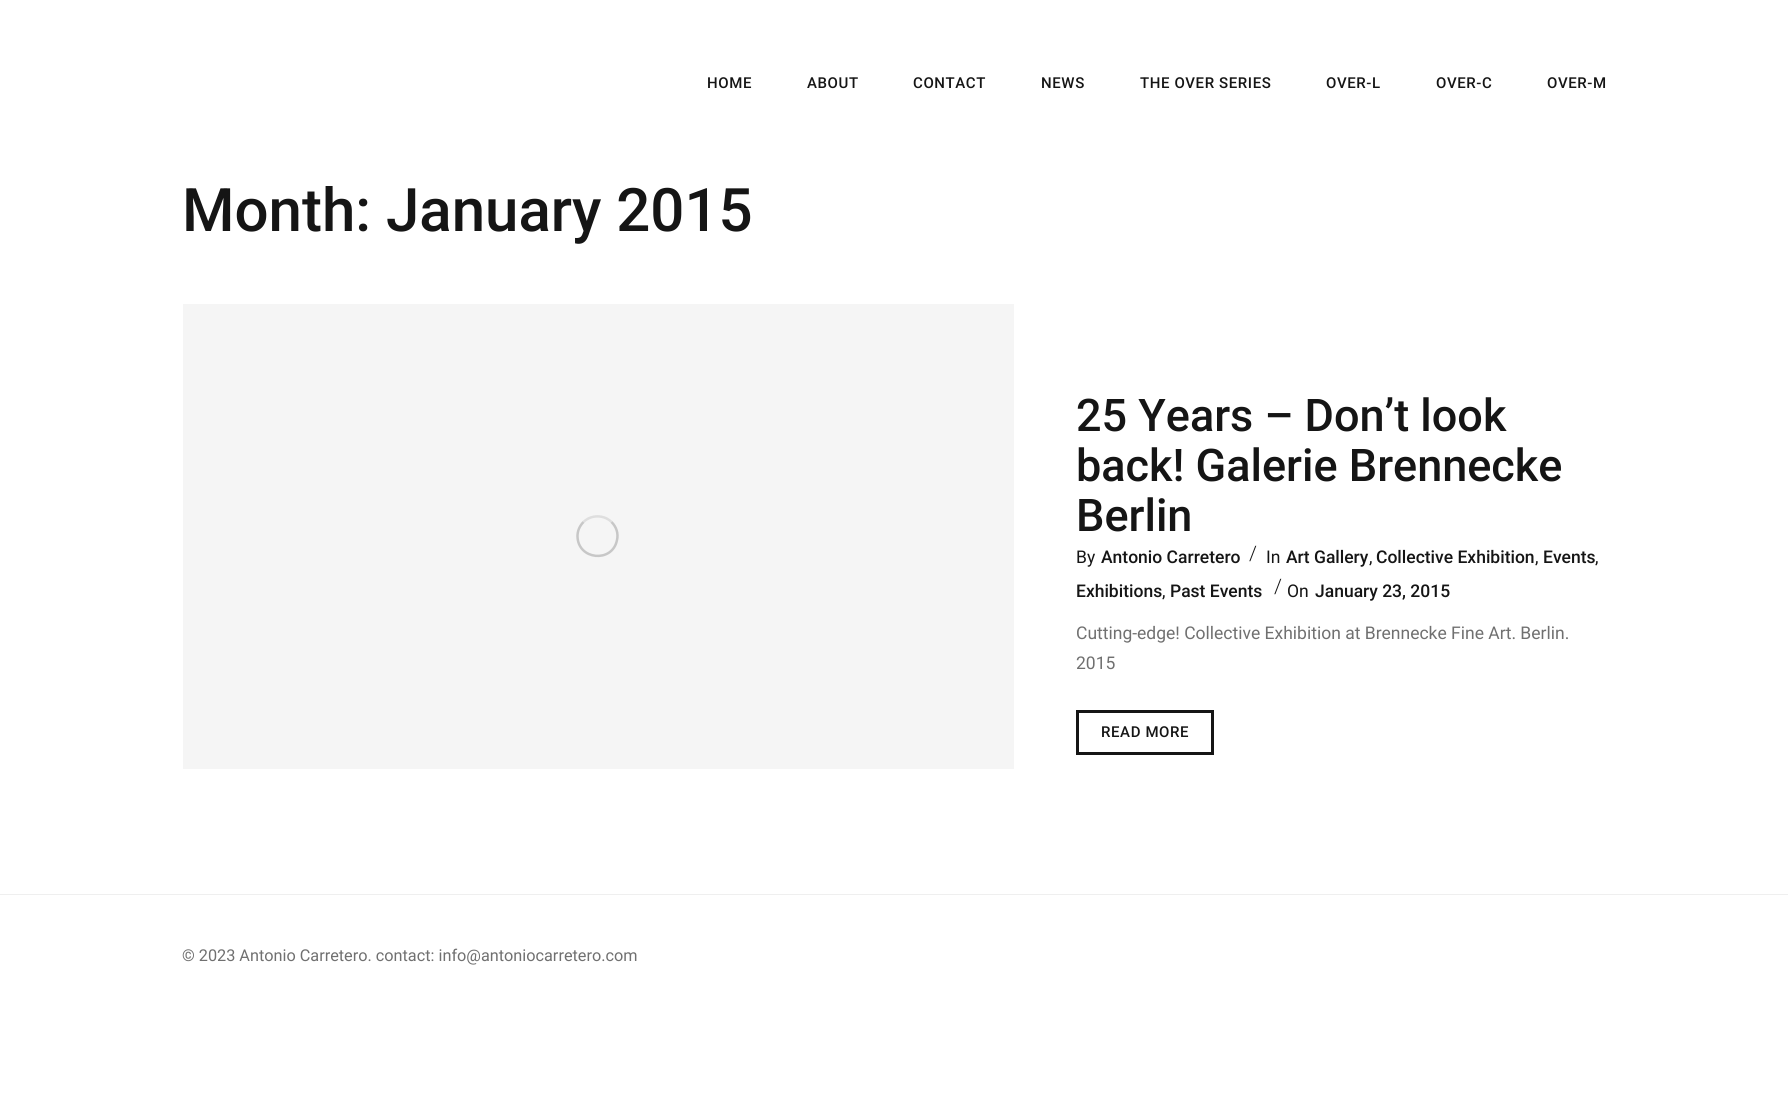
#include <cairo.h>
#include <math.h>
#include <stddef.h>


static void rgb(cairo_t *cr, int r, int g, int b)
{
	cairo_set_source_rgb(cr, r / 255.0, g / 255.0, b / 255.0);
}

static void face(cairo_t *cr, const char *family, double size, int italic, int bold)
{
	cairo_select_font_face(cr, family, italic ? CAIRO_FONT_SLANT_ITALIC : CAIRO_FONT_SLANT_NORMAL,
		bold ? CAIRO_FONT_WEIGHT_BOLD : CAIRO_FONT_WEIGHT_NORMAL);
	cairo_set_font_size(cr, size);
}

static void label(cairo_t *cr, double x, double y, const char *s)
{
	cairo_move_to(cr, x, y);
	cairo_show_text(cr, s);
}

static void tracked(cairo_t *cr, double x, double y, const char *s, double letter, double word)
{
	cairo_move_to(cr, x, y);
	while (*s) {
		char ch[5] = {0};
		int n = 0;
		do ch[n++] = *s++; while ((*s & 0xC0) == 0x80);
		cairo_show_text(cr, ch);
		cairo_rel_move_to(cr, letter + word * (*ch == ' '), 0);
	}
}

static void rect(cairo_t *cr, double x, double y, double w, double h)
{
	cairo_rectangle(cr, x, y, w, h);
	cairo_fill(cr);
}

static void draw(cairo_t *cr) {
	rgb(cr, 255, 255, 255);
	cairo_paint(cr);
	face(cr, "Roboto Medium", 15, 0, 0);
	rgb(cr, 21, 21, 21);
	tracked(cr, 707, 88, "HOME", 0.6, 0);
	tracked(cr, 807, 88, "ABOUT", 0.6, 0);
	tracked(cr, 913, 88, "CONTACT", 0.6, 0);
	tracked(cr, 1041, 88, "NEWS", 0.6, 0);
	tracked(cr, 1140, 88, "THE OVER SERIES", 0.6, 0);
	tracked(cr, 1326, 88, "OVER-L", 0.6, 0);
	tracked(cr, 1436, 88, "OVER-C", 0.6, 0);
	tracked(cr, 1547, 88, "OVER-M", 0.6, 0);
	face(cr, "Roboto Medium", 60, 0, 0);
	label(cr, 182, 231, "Month: January 2015");
	rgb(cr, 245, 245, 245);
	rect(cr, 183, 304, 831, 465);
	cairo_new_path(cr);
	cairo_move_to(cr, 583.5, 522);
	cairo_curve_to(cr, 591, 514.5, 604, 514.5, 611.5, 522);
	rgb(cr, 222, 222, 222);
	cairo_set_line_width(cr, 2.5);
	cairo_stroke(cr);
	cairo_new_path(cr);
	cairo_move_to(cr, 611.5, 522);
	cairo_curve_to(cr, 616.5, 527, 618.5, 533.5, 617, 540);
	cairo_curve_to(cr, 612.5, 563.5, 577.5, 560, 577.5, 536);
	cairo_curve_to(cr, 577.5, 531, 579.5, 526, 583.5, 522);
	rgb(cr, 199, 199, 199);
	cairo_stroke(cr);
	face(cr, "Roboto Medium", 45, 0, 0);
	rgb(cr, 21, 21, 21);
	label(cr, 1076, 431, "25 Years – Don’t look");
	label(cr, 1076, 481, "back! Galerie Brennecke");
	label(cr, 1076, 531, "Berlin");
	face(cr, "Roboto", 17.5, 0, 0);
	label(cr, 1076, 563, "By");
	face(cr, "Roboto Medium", 17.5, 0, 0);
	label(cr, 1101, 563, "Antonio Carretero");
	face(cr, "Roboto Light", 20, 0, 0);
	label(cr, 1249, 560, "/");
	face(cr, "Roboto", 17.5, 0, 0);
	label(cr, 1266, 563, "In");
	face(cr, "Roboto Medium", 17.5, 0, 0);
	label(cr, 1286, 563, "Art Gallery");
	face(cr, "Roboto", 17.5, 0, 0);
	label(cr, 1369, 563, ",");
	face(cr, "Roboto Medium", 17.5, 0, 0);
	label(cr, 1376, 563, "Collective Exhibition");
	face(cr, "Roboto", 17.5, 0, 0);
	label(cr, 1535, 563, ",");
	face(cr, "Roboto Medium", 17.5, 0, 0);
	label(cr, 1543, 563, "Events");
	face(cr, "Roboto", 17.5, 0, 0);
	label(cr, 1595, 563, ",");
	face(cr, "Roboto Medium", 17.5, 0, 0);
	label(cr, 1076, 597, "Exhibitions");
	face(cr, "Roboto", 17.5, 0, 0);
	label(cr, 1162, 597, ",");
	face(cr, "Roboto Medium", 17.5, 0, 0);
	label(cr, 1170, 597, "Past Events");
	face(cr, "Roboto Light", 20, 0, 0);
	label(cr, 1274, 593, "/");
	face(cr, "Roboto", 17.5, 0, 0);
	label(cr, 1287, 597, "On");
	face(cr, "Roboto Medium", 17.5, 0, 0);
	label(cr, 1315, 597, "January 23, 2015");
	face(cr, "Roboto", 17.5, 0, 0);
	rgb(cr, 112, 112, 112);
	label(cr, 1076, 639, "Cutting-edge! Collective Exhibition at Brennecke Fine Art. Berlin.");
	label(cr, 1076, 669, "2015");
	cairo_rectangle(cr, 1077.5, 711.5, 135, 42);
	rgb(cr, 21, 21, 21);
	cairo_set_line_width(cr, 3);
	cairo_stroke(cr);
	face(cr, "Roboto Medium", 15, 0, 0);
	tracked(cr, 1101, 737, "READ MORE", 0.6, 0);
	rgb(cr, 239, 239, 239);
	rect(cr, 0, 894, 1788, 1);
	face(cr, "Roboto", 16.25, 0, 0);
	rgb(cr, 112, 112, 112);
	label(cr, 182, 961, "© 2023 Antonio Carretero. contact: info@antoniocarretero.com");
}

int main(void) {
	cairo_surface_t *surface = cairo_image_surface_create(CAIRO_FORMAT_RGB24, 1788, 1094);
	cairo_t *cr = cairo_create(surface);
	cairo_font_options_t *options = cairo_font_options_create();
	cairo_font_options_set_hint_metrics(options, CAIRO_HINT_METRICS_OFF);
	cairo_font_options_set_hint_style(options, CAIRO_HINT_STYLE_NONE);
	cairo_set_font_options(cr, options);
	cairo_set_miter_limit(cr, 4);
	draw(cr);
	cairo_surface_write_to_png(surface, "render.png");
	cairo_font_options_destroy(options);
	cairo_destroy(cr);
	cairo_surface_destroy(surface);
	return 0;
}
